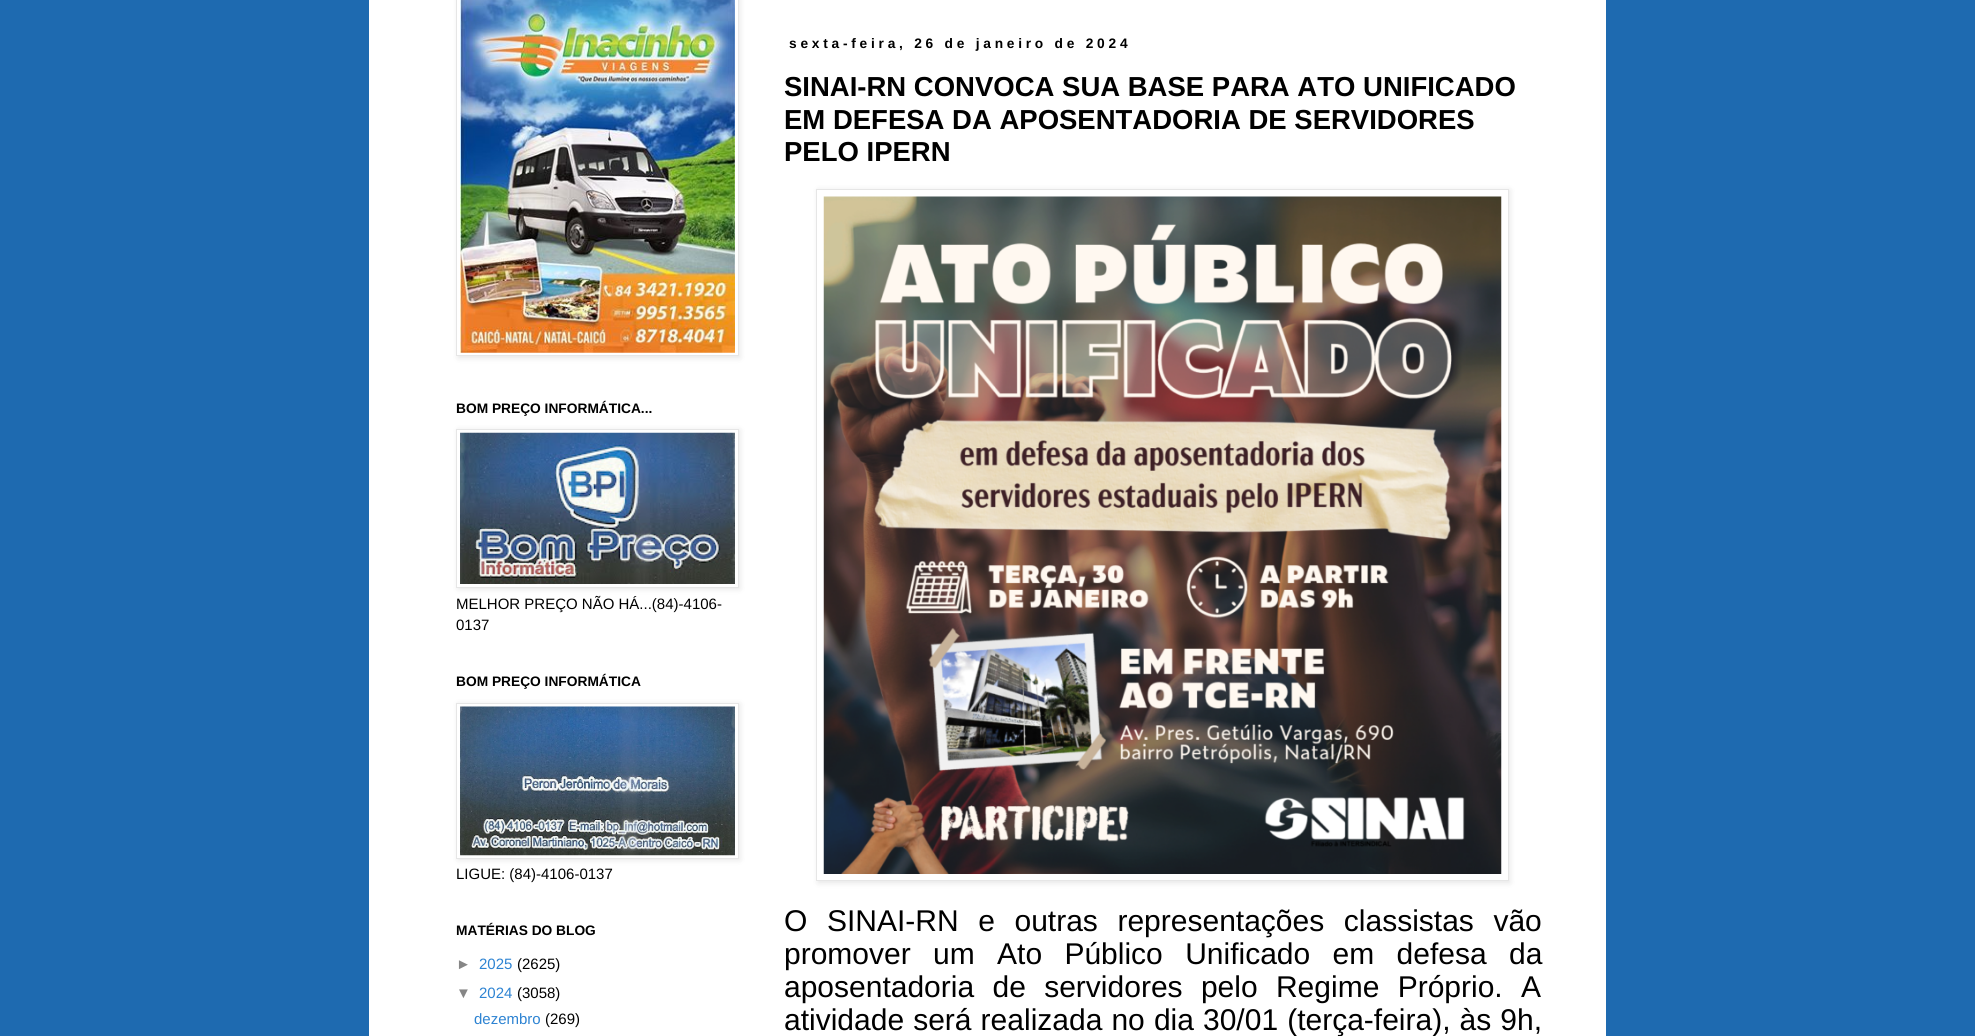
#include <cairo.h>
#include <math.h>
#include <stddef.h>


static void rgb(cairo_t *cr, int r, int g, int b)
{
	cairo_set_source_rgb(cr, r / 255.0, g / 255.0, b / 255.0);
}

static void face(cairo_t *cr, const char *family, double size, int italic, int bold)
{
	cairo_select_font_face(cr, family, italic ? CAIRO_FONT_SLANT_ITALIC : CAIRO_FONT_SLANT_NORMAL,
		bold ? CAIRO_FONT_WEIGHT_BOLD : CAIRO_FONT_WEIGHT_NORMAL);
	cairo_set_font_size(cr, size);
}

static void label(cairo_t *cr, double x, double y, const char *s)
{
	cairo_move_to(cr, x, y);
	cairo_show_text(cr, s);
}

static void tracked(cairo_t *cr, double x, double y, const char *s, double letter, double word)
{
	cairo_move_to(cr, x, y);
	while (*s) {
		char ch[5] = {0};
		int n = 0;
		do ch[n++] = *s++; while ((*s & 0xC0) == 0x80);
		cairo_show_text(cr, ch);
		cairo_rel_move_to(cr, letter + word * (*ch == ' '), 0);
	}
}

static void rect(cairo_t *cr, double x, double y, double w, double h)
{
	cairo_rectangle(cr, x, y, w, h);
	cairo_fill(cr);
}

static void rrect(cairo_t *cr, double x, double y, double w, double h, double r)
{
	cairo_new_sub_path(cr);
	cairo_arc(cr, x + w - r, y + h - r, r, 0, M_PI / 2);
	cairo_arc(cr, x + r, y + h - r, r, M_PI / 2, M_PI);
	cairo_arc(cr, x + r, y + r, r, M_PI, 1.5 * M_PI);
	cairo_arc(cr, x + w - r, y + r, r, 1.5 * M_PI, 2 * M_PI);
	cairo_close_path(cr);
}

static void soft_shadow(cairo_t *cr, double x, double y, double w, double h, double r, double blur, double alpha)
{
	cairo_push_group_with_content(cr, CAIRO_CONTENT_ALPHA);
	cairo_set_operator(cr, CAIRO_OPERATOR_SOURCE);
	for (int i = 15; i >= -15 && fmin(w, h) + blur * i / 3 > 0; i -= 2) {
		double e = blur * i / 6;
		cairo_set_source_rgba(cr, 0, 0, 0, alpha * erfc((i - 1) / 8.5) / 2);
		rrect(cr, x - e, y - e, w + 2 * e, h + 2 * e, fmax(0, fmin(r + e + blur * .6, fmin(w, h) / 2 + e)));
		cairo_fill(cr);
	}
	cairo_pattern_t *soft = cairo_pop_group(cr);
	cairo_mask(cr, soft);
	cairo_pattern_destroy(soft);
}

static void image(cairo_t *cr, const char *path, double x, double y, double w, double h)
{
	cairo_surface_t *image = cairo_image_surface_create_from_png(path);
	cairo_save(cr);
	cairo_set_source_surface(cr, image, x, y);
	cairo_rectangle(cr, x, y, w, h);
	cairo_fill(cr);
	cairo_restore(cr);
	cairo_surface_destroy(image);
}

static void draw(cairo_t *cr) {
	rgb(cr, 30, 106, 176);
	cairo_paint(cr);
	rgb(cr, 255, 255, 255);
	rect(cr, 369, 0, 1237, 1036);
	rgb(cr, 0, 0, 0);
	soft_shadow(cr, 458, -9, 282, 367, 0, 3, 0.1);
	rgb(cr, 255, 255, 255);
	cairo_rectangle(cr, 456.5, -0.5, 282, 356);
	cairo_fill_preserve(cr);
	rgb(cr, 230, 230, 230);
	cairo_set_line_width(cr, 1);
	cairo_stroke(cr);
	image(cr, "image0.png", 460, 0, 275, 353);
	face(cr, "Liberation Sans", 13.75, 0, 1);
	rgb(cr, 0, 0, 0);
	label(cr, 456, 413, "BOM PREÇO INFORMÁTICA...");
	rgb(cr, 0, 0, 0);
	soft_shadow(cr, 458, 430, 282, 159, 0, 3, 0.1);
	rgb(cr, 255, 255, 255);
	cairo_rectangle(cr, 456.5, 429.5, 282, 158);
	cairo_fill_preserve(cr);
	rgb(cr, 230, 230, 230);
	cairo_stroke(cr);
	image(cr, "image1.png", 460, 432, 275, 152);
	face(cr, "Liberation Sans", 15, 0, 0);
	rgb(cr, 0, 0, 0);
	label(cr, 456, 609, "MELHOR PREÇO NÃO HÁ...(84)-4106-");
	label(cr, 456, 630, "0137");
	face(cr, "Liberation Sans", 13.75, 0, 1);
	label(cr, 456, 686, "BOM PREÇO INFORMÁTICA");
	rgb(cr, 0, 0, 0);
	soft_shadow(cr, 458, 704, 282, 156, 0, 3, 0.1);
	rgb(cr, 255, 255, 255);
	cairo_rectangle(cr, 456.5, 703.5, 282, 155);
	cairo_fill_preserve(cr);
	rgb(cr, 230, 230, 230);
	cairo_stroke(cr);
	image(cr, "image2.png", 460, 706, 275, 150);
	face(cr, "Liberation Sans", 15, 0, 0);
	rgb(cr, 0, 0, 0);
	label(cr, 456, 879, "LIGUE: (84)-4106-0137");
	face(cr, "Liberation Sans", 13.75, 0, 1);
	label(cr, 456, 935, "MATÉRIAS DO BLOG");
	face(cr, "Liberation Sans", 15, 0, 0);
	rgb(cr, 134, 134, 134);
	label(cr, 456, 969, "►");
	rgb(cr, 45, 131, 210);
	label(cr, 479, 969, "2025");
	rgb(cr, 0, 0, 0);
	label(cr, 517, 969, "(2625)");
	rgb(cr, 134, 134, 134);
	label(cr, 456, 998, "▼");
	rgb(cr, 45, 131, 210);
	label(cr, 479, 998, "2024");
	rgb(cr, 0, 0, 0);
	label(cr, 517, 998, "(3058)");
	rgb(cr, 45, 131, 210);
	label(cr, 474, 1024, "dezembro");
	rgb(cr, 0, 0, 0);
	label(cr, 545, 1024, "(269)");
	face(cr, "Liberation Sans", 13.75, 0, 1);
	tracked(cr, 789, 48, "sexta-feira, 26 de janeiro de 2024", 3.75, 0);
	face(cr, "Liberation Sans", 27.5, 0, 1);
	label(cr, 784, 96, "SINAI-RN CONVOCA SUA BASE PARA ATO UNIFICADO");
	label(cr, 784, 129, "EM DEFESA DA APOSENTADORIA DE SERVIDORES");
	label(cr, 784, 161, "PELO IPERN");
	rgb(cr, 0, 0, 0);
	soft_shadow(cr, 818, 190, 692, 693, 0, 3, 0.1);
	rgb(cr, 255, 255, 255);
	cairo_rectangle(cr, 816.5, 189.5, 692, 691);
	cairo_fill_preserve(cr);
	rgb(cr, 230, 230, 230);
	cairo_stroke(cr);
	image(cr, "image3.png", 823, 196, 679, 678);
	face(cr, "Liberation Sans", 30, 0, 0);
	rgb(cr, 0, 0, 0);
	tracked(cr, 784, 931, "O SINAI-RN e outras representações classistas vão", 0, 11.25);
	tracked(cr, 784, 964, "promover um Ato Público Unificado em defesa da", 0, 14);
	tracked(cr, 784, 997, "aposentadoria de servidores pelo Regime Próprio. A", 0, 10);
	tracked(cr, 784, 1030, "atividade será realizada no dia 30/01 (terça-feira), às 9h,", 0, 0.75);
}

int main(void) {
	cairo_surface_t *surface = cairo_image_surface_create(CAIRO_FORMAT_RGB24, 1975, 1036);
	cairo_t *cr = cairo_create(surface);
	cairo_font_options_t *options = cairo_font_options_create();
	cairo_font_options_set_hint_metrics(options, CAIRO_HINT_METRICS_OFF);
	cairo_font_options_set_hint_style(options, CAIRO_HINT_STYLE_NONE);
	cairo_set_font_options(cr, options);
	cairo_set_miter_limit(cr, 4);
	draw(cr);
	cairo_surface_write_to_png(surface, "render.png");
	cairo_font_options_destroy(options);
	cairo_destroy(cr);
	cairo_surface_destroy(surface);
	return 0;
}
